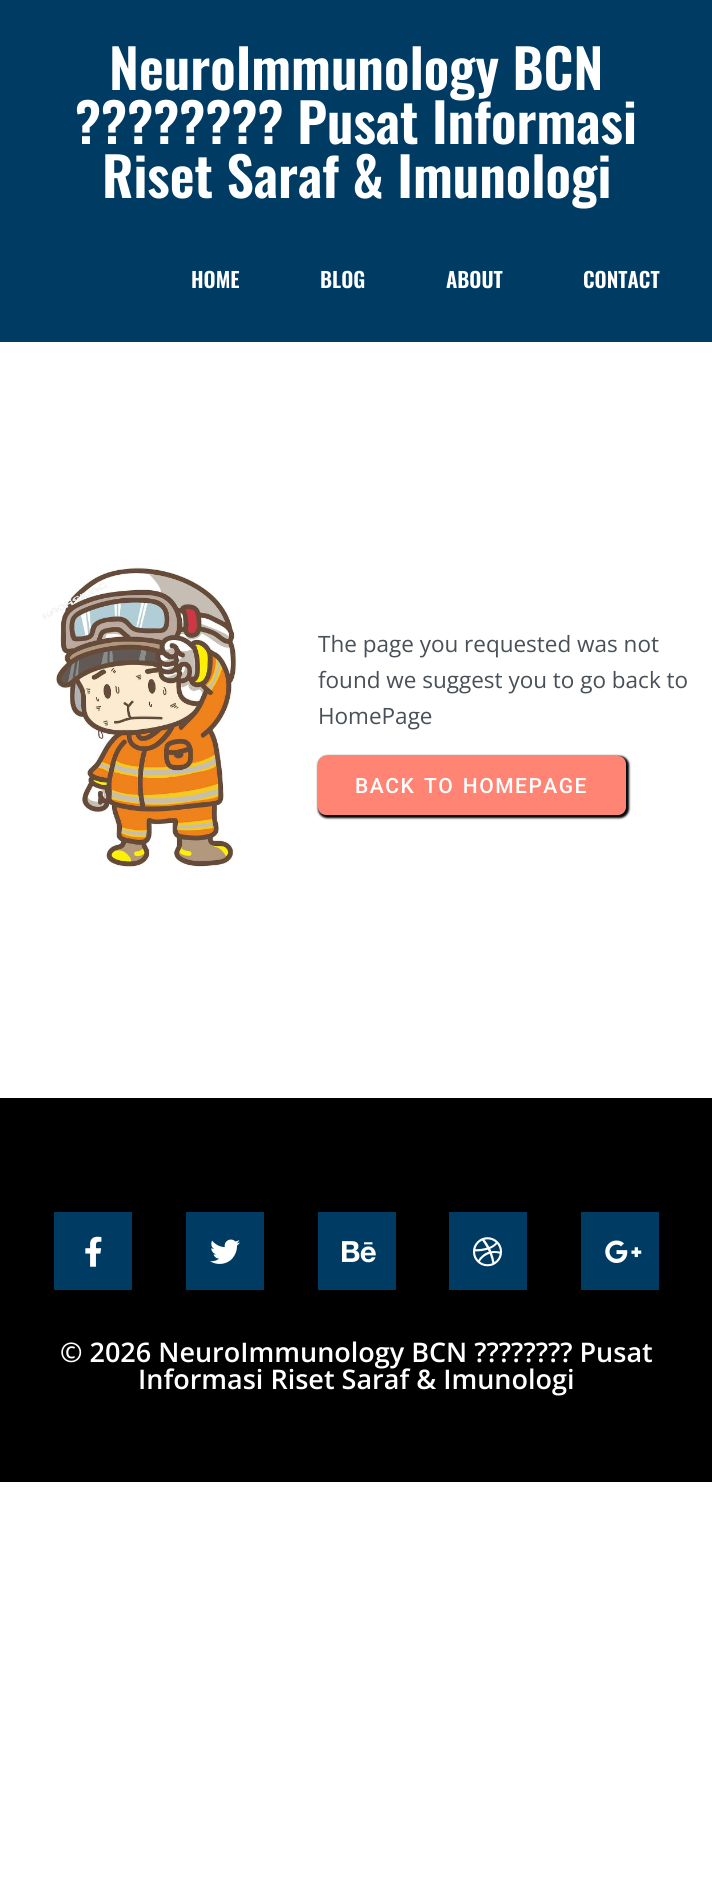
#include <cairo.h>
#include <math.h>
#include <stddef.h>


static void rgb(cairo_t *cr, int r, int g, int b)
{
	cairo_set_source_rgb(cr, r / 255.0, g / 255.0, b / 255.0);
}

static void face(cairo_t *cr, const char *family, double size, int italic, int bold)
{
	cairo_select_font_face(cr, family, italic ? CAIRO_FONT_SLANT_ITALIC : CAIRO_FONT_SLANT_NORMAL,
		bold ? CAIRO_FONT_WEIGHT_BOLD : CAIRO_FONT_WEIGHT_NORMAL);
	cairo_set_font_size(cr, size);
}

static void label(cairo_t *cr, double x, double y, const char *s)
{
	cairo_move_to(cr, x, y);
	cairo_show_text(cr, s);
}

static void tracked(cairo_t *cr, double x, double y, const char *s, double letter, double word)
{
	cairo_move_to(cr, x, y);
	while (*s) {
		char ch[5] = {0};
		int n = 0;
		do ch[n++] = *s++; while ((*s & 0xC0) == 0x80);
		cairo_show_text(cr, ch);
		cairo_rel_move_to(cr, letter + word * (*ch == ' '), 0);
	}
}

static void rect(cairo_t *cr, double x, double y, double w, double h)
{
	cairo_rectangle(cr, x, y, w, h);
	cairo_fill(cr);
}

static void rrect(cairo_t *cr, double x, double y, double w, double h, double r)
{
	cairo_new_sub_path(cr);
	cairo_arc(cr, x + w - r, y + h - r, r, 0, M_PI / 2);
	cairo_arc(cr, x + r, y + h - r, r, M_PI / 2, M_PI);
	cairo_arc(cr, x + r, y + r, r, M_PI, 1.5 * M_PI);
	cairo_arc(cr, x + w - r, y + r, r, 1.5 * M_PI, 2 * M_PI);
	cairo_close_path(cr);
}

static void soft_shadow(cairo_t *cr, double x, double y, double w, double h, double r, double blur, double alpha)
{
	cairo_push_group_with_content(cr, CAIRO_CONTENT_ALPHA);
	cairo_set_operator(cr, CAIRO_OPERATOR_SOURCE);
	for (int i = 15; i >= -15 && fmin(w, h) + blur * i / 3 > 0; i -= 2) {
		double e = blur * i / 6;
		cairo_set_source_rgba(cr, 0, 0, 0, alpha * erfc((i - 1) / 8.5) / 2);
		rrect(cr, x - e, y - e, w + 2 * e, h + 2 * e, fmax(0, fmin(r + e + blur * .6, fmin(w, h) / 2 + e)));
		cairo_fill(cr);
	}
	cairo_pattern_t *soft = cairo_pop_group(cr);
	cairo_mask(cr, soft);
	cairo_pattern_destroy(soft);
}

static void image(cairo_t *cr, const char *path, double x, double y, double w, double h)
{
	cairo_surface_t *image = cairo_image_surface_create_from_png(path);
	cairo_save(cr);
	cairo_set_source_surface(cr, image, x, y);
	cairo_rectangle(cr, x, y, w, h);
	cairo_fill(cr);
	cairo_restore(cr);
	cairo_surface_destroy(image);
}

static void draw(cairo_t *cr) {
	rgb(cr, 255, 255, 255);
	cairo_paint(cr);
	rgb(cr, 0, 59, 100);
	rect(cr, 0, 0, 712, 342);
	face(cr, "Oswald SemiBold", 54, 0, 0);
	rgb(cr, 255, 255, 255);
	label(cr, 109, 90, "NeuroImmunology BCN");
	label(cr, 75, 144, "?\077?\077?\077?\077 Pusat Informasi");
	label(cr, 102, 198, "Riset Saraf & Imunologi");
	face(cr, "Oswald SemiBold", 21, 0, 0);
	label(cr, 191, 288, "HOME");
	label(cr, 320, 288, "BLOG");
	label(cr, 446, 288, "ABOUT");
	label(cr, 583, 288, "CONTACT");
	image(cr, "image0.png", 42, 567, 195, 300);
	face(cr, "Open Sans", 22.5, 0, 0);
	rgb(cr, 73, 80, 87);
	label(cr, 318, 652, "The page you requested was not");
	label(cr, 318, 688, "found we suggest you to go back to");
	label(cr, 318, 724, "HomePage");
	rgb(cr, 0, 0, 0);
	soft_shadow(cr, 318, 756, 311, 62, 9, 1, 1);
	rgb(cr, 255, 132, 116);
	rrect(cr, 318, 756, 308, 59, 8);
	cairo_fill(cr);
	face(cr, "Roboto Medium", 21, 0, 0);
	rgb(cr, 255, 255, 255);
	tracked(cr, 355, 793, "BACK TO HOMEPAGE", 1.5, 2);
	rgb(cr, 0, 0, 0);
	rect(cr, 0, 1098, 712, 384);
	rgb(cr, 0, 59, 100);
	rect(cr, 54, 1212, 78, 78);
	image(cr, "image1.png", 85, 1236, 17, 31);
	rect(cr, 186, 1212, 78, 78);
	image(cr, "image2.png", 210, 1239, 30, 25);
	rect(cr, 318, 1212, 78, 78);
	image(cr, "image3.png", 342, 1241, 34, 22);
	rect(cr, 449, 1212, 78, 78);
	image(cr, "image4.png", 473, 1237, 29, 30);
	rect(cr, 581, 1212, 78, 78);
	image(cr, "image5.png", 605, 1240, 37, 23);
	face(cr, "Open Sans SemiBold", 27, 0, 0);
	rgb(cr, 255, 255, 255);
	label(cr, 60, 1362, "© 2026 NeuroImmunology BCN ?\077?\077?\077?\077 Pusat");
	label(cr, 138, 1389, "Informasi Riset Saraf & Imunologi");
}

int main(void) {
	cairo_surface_t *surface = cairo_image_surface_create(CAIRO_FORMAT_RGB24, 712, 1880);
	cairo_t *cr = cairo_create(surface);
	cairo_font_options_t *options = cairo_font_options_create();
	cairo_font_options_set_hint_metrics(options, CAIRO_HINT_METRICS_OFF);
	cairo_font_options_set_hint_style(options, CAIRO_HINT_STYLE_NONE);
	cairo_set_font_options(cr, options);
	cairo_set_miter_limit(cr, 4);
	draw(cr);
	cairo_surface_write_to_png(surface, "render.png");
	cairo_font_options_destroy(options);
	cairo_destroy(cr);
	cairo_surface_destroy(surface);
	return 0;
}
